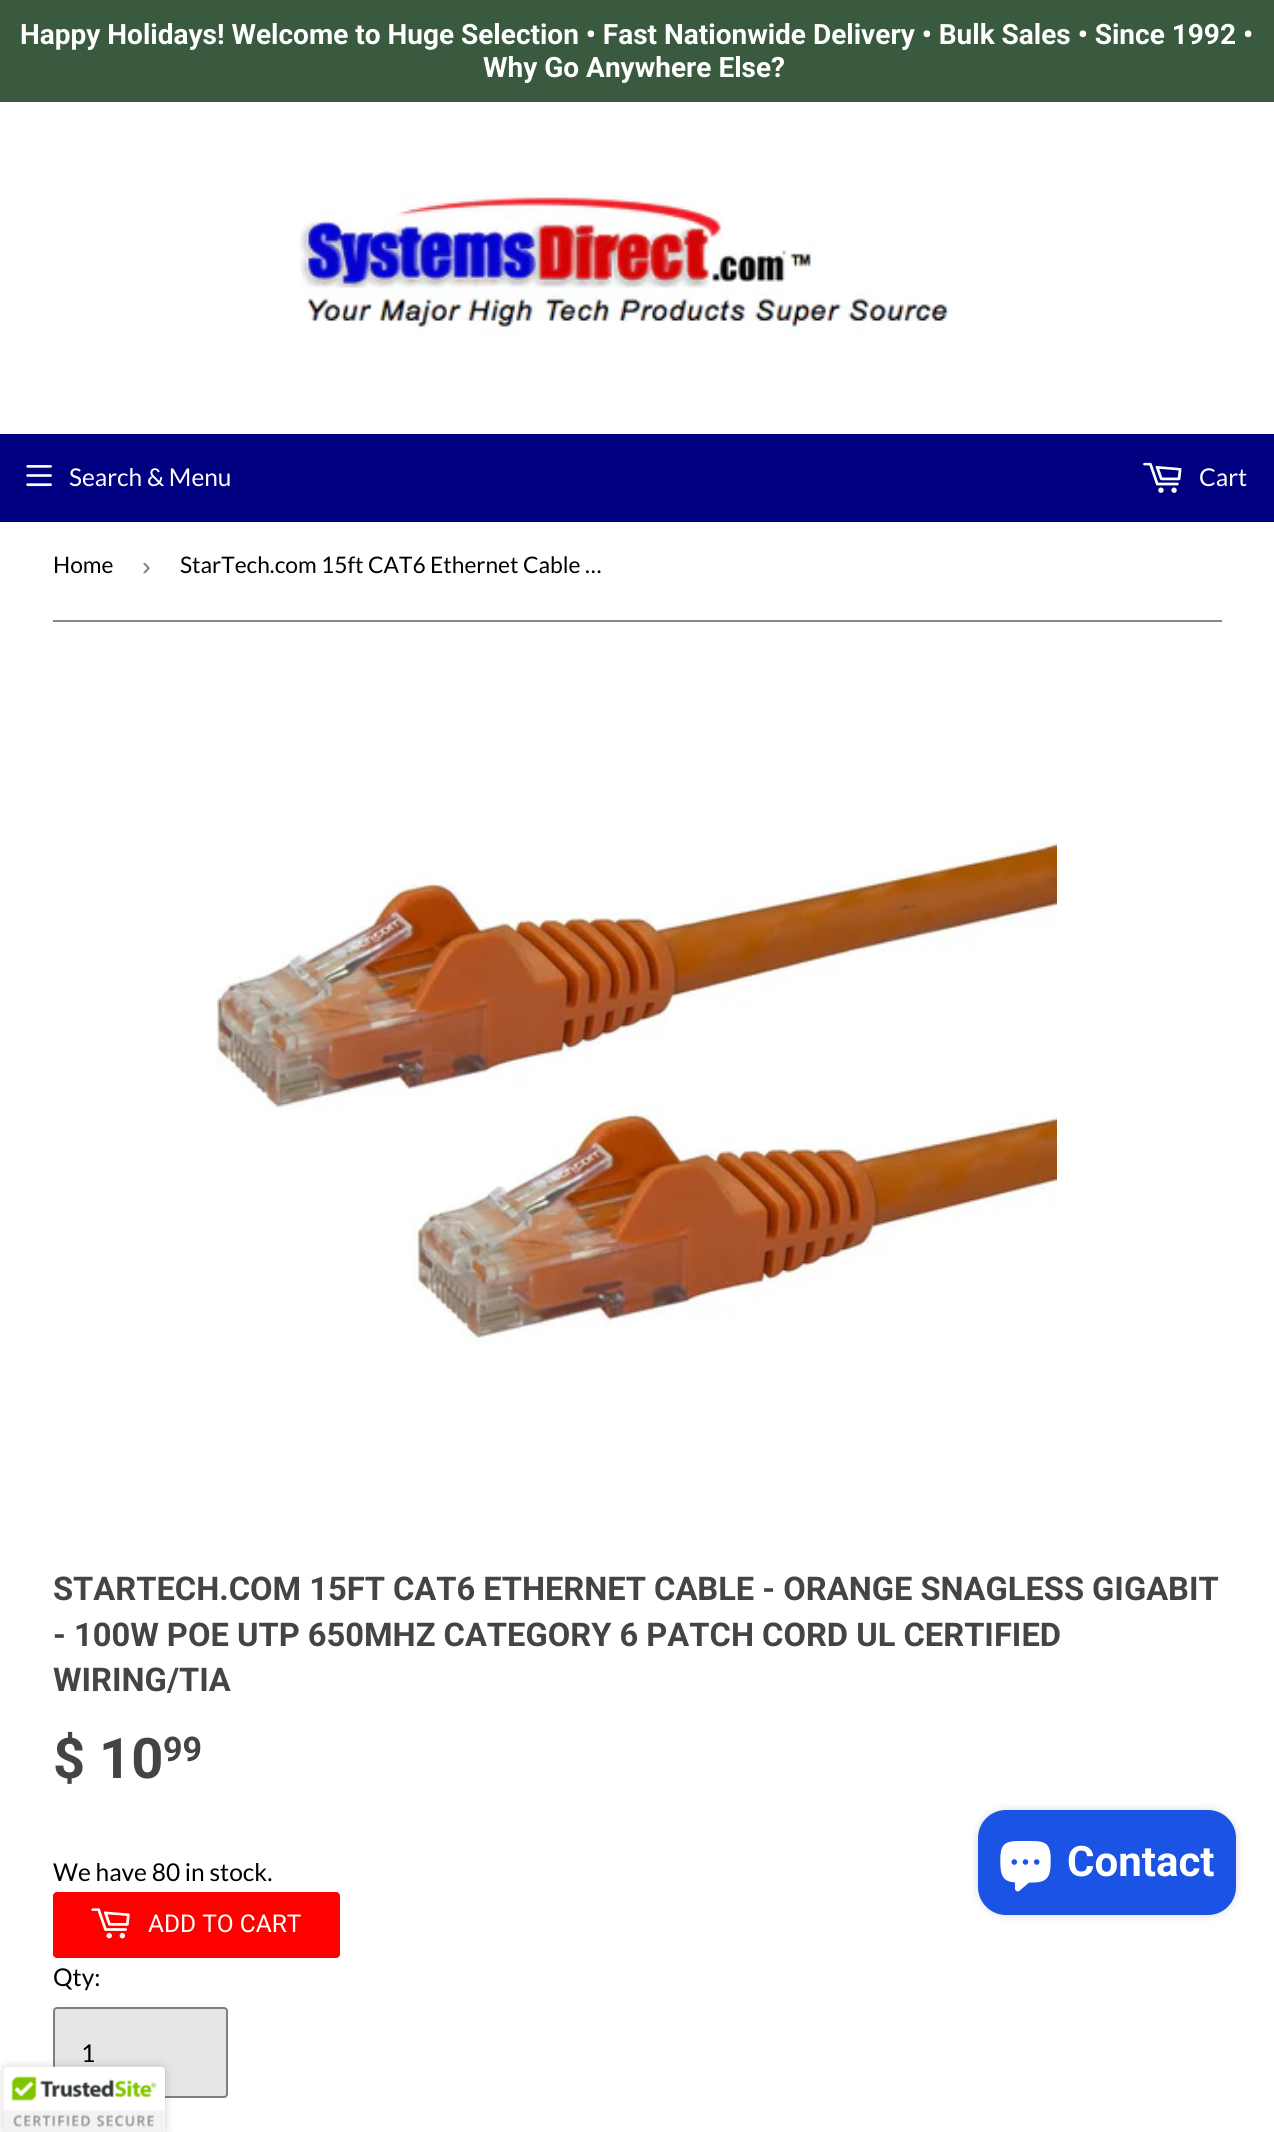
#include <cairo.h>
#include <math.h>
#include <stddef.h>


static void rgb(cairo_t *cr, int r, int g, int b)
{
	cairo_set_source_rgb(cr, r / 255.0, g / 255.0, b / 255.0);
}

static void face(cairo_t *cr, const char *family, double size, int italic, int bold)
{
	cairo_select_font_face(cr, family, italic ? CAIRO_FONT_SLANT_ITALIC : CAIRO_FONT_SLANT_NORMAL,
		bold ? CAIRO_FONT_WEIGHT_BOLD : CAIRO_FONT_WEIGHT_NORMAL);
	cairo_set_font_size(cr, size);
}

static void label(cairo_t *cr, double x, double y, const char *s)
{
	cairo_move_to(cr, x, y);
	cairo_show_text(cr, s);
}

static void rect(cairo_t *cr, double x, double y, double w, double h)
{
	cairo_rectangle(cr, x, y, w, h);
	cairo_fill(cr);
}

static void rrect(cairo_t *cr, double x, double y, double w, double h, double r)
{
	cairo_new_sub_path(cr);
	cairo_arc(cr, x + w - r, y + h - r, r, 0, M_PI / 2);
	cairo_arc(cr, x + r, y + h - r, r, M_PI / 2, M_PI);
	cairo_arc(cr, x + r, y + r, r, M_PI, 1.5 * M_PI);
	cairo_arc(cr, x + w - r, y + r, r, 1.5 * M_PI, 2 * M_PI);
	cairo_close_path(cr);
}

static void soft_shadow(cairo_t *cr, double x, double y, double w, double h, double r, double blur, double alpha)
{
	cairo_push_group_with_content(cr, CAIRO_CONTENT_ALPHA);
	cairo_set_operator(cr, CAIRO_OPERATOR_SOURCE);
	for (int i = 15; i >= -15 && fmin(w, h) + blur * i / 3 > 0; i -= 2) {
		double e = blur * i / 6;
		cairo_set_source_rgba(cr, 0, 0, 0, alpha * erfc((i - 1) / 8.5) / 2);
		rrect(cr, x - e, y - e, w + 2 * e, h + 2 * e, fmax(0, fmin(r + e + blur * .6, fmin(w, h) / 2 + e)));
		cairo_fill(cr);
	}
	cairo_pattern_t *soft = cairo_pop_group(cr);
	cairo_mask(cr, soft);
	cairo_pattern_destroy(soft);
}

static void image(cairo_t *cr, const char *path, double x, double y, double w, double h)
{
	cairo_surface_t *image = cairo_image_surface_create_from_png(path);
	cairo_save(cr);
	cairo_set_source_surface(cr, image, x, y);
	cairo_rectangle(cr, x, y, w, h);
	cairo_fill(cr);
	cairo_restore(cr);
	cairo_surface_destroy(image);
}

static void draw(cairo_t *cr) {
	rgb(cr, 255, 255, 255);
	cairo_paint(cr);
	rgb(cr, 58, 90, 64);
	rect(cr, 0, 0, 1274, 102);
	face(cr, "Roboto", 28, 0, 1);
	rgb(cr, 255, 255, 255);
	label(cr, 20, 44, "Happy Holidays! Welcome to Huge Selection • Fast Nationwide Delivery • Bulk Sales • Since 1992 •");
	label(cr, 483, 77, "Why Go Anywhere Else?");
	image(cr, "image0.png", 299, 194, 650, 140);
	rgb(cr, 0, 0, 128);
	rect(cr, 0, 434, 1274, 88);
	image(cr, "image1.png", 26, 465, 26, 22);
	face(cr, "Lato", 24.5, 0, 0);
	rgb(cr, 255, 255, 255);
	label(cr, 69, 486, "Search & Menu");
	image(cr, "image2.png", 1143, 462, 39, 31);
	label(cr, 1199, 486, "Cart");
	rgb(cr, 136, 136, 136);
	rect(cr, 53, 620, 1169, 2);
	face(cr, "Lato", 22.75, 0, 0);
	rgb(cr, 0, 0, 0);
	label(cr, 53, 573, "Home");
	face(cr, "Liberation Sans", 26, 0, 0);
	rgb(cr, 118, 118, 118);
	label(cr, 142, 575, "›");
	face(cr, "Lato", 22.75, 0, 0);
	rgb(cr, 0, 0, 0);
	label(cr, 180, 573, "StarTech.com 15ft CAT6 Ethernet Cable …");
	image(cr, "image3.png", 217, 841, 840, 505);
	face(cr, "Roboto", 32.65, 0, 1);
	rgb(cr, 68, 68, 68);
	label(cr, 53, 1600, "STARTECH.COM 15FT CAT6 ETHERNET CABLE - ORANGE SNAGLESS GIGABIT");
	label(cr, 53, 1646, "- 100W POE UTP 650MHZ CATEGORY 6 PATCH CORD UL CERTIFIED");
	label(cr, 53, 1691, "WIRING/TIA");
	face(cr, "Roboto", 56, 0, 1);
	label(cr, 53, 1778, "$ 10");
	face(cr, "Roboto", 34, 0, 1);
	label(cr, 163, 1761, "99");
	face(cr, "Lato", 24.5, 0, 0);
	rgb(cr, 0, 0, 0);
	label(cr, 53, 1881, "We have 80 in stock.");
	rgb(cr, 255, 0, 0);
	rrect(cr, 53, 1892, 287, 66, 4);
	cairo_fill(cr);
	image(cr, "image4.png", 91, 1908, 39, 31);
	face(cr, "Roboto", 24.5, 0, 0);
	rgb(cr, 255, 255, 255);
	label(cr, 148, 1932, "ADD TO CART");
	face(cr, "Lato", 24.5, 0, 0);
	rgb(cr, 0, 0, 0);
	label(cr, 53, 1986, "Qty:");
	rgb(cr, 230, 230, 230);
	rrect(cr, 54, 2008, 173, 89, 3);
	cairo_fill_preserve(cr);
	rgb(cr, 128, 128, 128);
	cairo_stroke(cr);
	rgb(cr, 0, 0, 0);
	label(cr, 81, 2062, "1");
	rgb(cr, 0, 0, 0);
	soft_shadow(cr, 978, 1810, 258, 105, 28, 4.5, 0.15);
	rgb(cr, 27, 84, 228);
	rrect(cr, 978, 1810, 258, 105, 28);
	cairo_fill(cr);
	image(cr, "image5.png", 1000, 1841, 51, 51);
	face(cr, "Roboto", 42, 0, 1);
	rgb(cr, 255, 255, 255);
	label(cr, 1067, 1876, "Contact");
	rgb(cr, 0, 0, 0);
	soft_shadow(cr, 4, 2067, 161, 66, 4, 4.5, 0.2);
	rgb(cr, 255, 255, 255);
	cairo_new_path(cr);
	cairo_move_to(cr, 8, 2067);
	cairo_line_to(cr, 161, 2067);
	cairo_curve_to(cr, 163, 2067, 165, 2069, 165, 2071);
	cairo_line_to(cr, 165, 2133);
	cairo_line_to(cr, 4, 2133);
	cairo_line_to(cr, 4, 2071);
	cairo_curve_to(cr, 4, 2069, 6, 2067, 8, 2067);
	cairo_close_path(cr);
	cairo_fill(cr);
	image(cr, "image6.png", 3, 2066, 162, 66);
}

int main(void) {
	cairo_surface_t *surface = cairo_image_surface_create(CAIRO_FORMAT_RGB24, 1274, 2132);
	cairo_t *cr = cairo_create(surface);
	cairo_font_options_t *options = cairo_font_options_create();
	cairo_font_options_set_hint_metrics(options, CAIRO_HINT_METRICS_OFF);
	cairo_font_options_set_hint_style(options, CAIRO_HINT_STYLE_NONE);
	cairo_set_font_options(cr, options);
	cairo_set_miter_limit(cr, 4);
	draw(cr);
	cairo_surface_write_to_png(surface, "render.png");
	cairo_font_options_destroy(options);
	cairo_destroy(cr);
	cairo_surface_destroy(surface);
	return 0;
}
